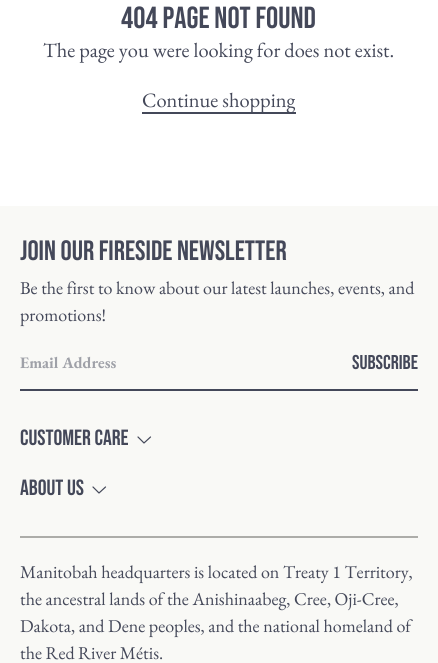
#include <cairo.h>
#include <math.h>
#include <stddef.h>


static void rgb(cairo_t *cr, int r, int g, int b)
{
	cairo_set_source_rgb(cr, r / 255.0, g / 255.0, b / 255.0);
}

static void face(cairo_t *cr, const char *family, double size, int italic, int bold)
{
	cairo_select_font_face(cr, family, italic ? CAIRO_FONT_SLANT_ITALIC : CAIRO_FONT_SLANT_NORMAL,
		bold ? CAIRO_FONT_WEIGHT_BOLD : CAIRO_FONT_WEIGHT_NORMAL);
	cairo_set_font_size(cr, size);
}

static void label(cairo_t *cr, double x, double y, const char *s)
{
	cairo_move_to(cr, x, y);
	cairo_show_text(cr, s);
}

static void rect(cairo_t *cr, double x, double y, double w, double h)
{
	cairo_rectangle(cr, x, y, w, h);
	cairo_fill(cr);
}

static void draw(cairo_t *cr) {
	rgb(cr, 255, 255, 255);
	cairo_paint(cr);
	face(cr, "Bebas Neue", 30.5, 0, 0);
	rgb(cr, 68, 72, 89);
	label(cr, 121, 28, "404 PAGE NOT FOUND");
	face(cr, "EB Garamond", 20.4, 0, 0);
	label(cr, 43, 57, "The page you were looking for does not exist.");
	rect(cr, 142, 112, 154, 2);
	label(cr, 142, 107, "Continue shopping");
	rgb(cr, 249, 249, 246);
	rect(cr, 0, 206, 438, 457);
	face(cr, "Bebas Neue", 28, 0, 0);
	rgb(cr, 68, 72, 89);
	label(cr, 20, 260, "Join Our Fireside Newsletter");
	face(cr, "EB Garamond", 18, 0, 0);
	label(cr, 20, 294, "Be the first to know about our latest launches, events, and");
	label(cr, 20, 321, "promotions!");
	rect(cr, 20, 389, 398, 2);
	face(cr, "EB Garamond", 16, 0, 1);
	rgb(cr, 159, 161, 168);
	label(cr, 20, 368, "Email Address");
	face(cr, "Bebas Neue", 20, 0, 0);
	rgb(cr, 68, 72, 89);
	label(cr, 352, 369, "SUBSCRIBE");
	face(cr, "Bebas Neue", 22, 0, 0);
	label(cr, 20, 445, "Customer Care");
	cairo_new_path(cr);
	cairo_move_to(cr, 150.5, 437);
	cairo_line_to(cr, 144, 443);
	cairo_line_to(cr, 138, 437);
	cairo_move_to(cr, 105.5, 487);
	cairo_line_to(cr, 99, 493);
	cairo_line_to(cr, 93, 487);
	cairo_set_line_width(cr, 1.2);
	cairo_set_line_cap(cr, CAIRO_LINE_CAP_ROUND);
	cairo_set_line_join(cr, CAIRO_LINE_JOIN_ROUND);
	cairo_stroke(cr);
	label(cr, 20, 495, "About Us");
	rgb(cr, 173, 173, 169);
	rect(cr, 20, 536, 398, 2);
	face(cr, "EB Garamond", 18, 0, 0);
	rgb(cr, 68, 72, 89);
	label(cr, 20, 578, "Manitobah headquarters is located on Treaty 1 Territory,");
	label(cr, 20, 605, "the ancestral lands of the Anishinaabeg, Cree, Oji-Cree,");
	label(cr, 20, 632, "Dakota, and Dene peoples, and the national homeland of");
	label(cr, 20, 659, "the Red River Métis.");
}

int main(void) {
	cairo_surface_t *surface = cairo_image_surface_create(CAIRO_FORMAT_RGB24, 438, 663);
	cairo_t *cr = cairo_create(surface);
	cairo_font_options_t *options = cairo_font_options_create();
	cairo_font_options_set_hint_metrics(options, CAIRO_HINT_METRICS_OFF);
	cairo_font_options_set_hint_style(options, CAIRO_HINT_STYLE_NONE);
	cairo_set_font_options(cr, options);
	cairo_set_miter_limit(cr, 4);
	draw(cr);
	cairo_surface_write_to_png(surface, "render.png");
	cairo_font_options_destroy(options);
	cairo_destroy(cr);
	cairo_surface_destroy(surface);
	return 0;
}
